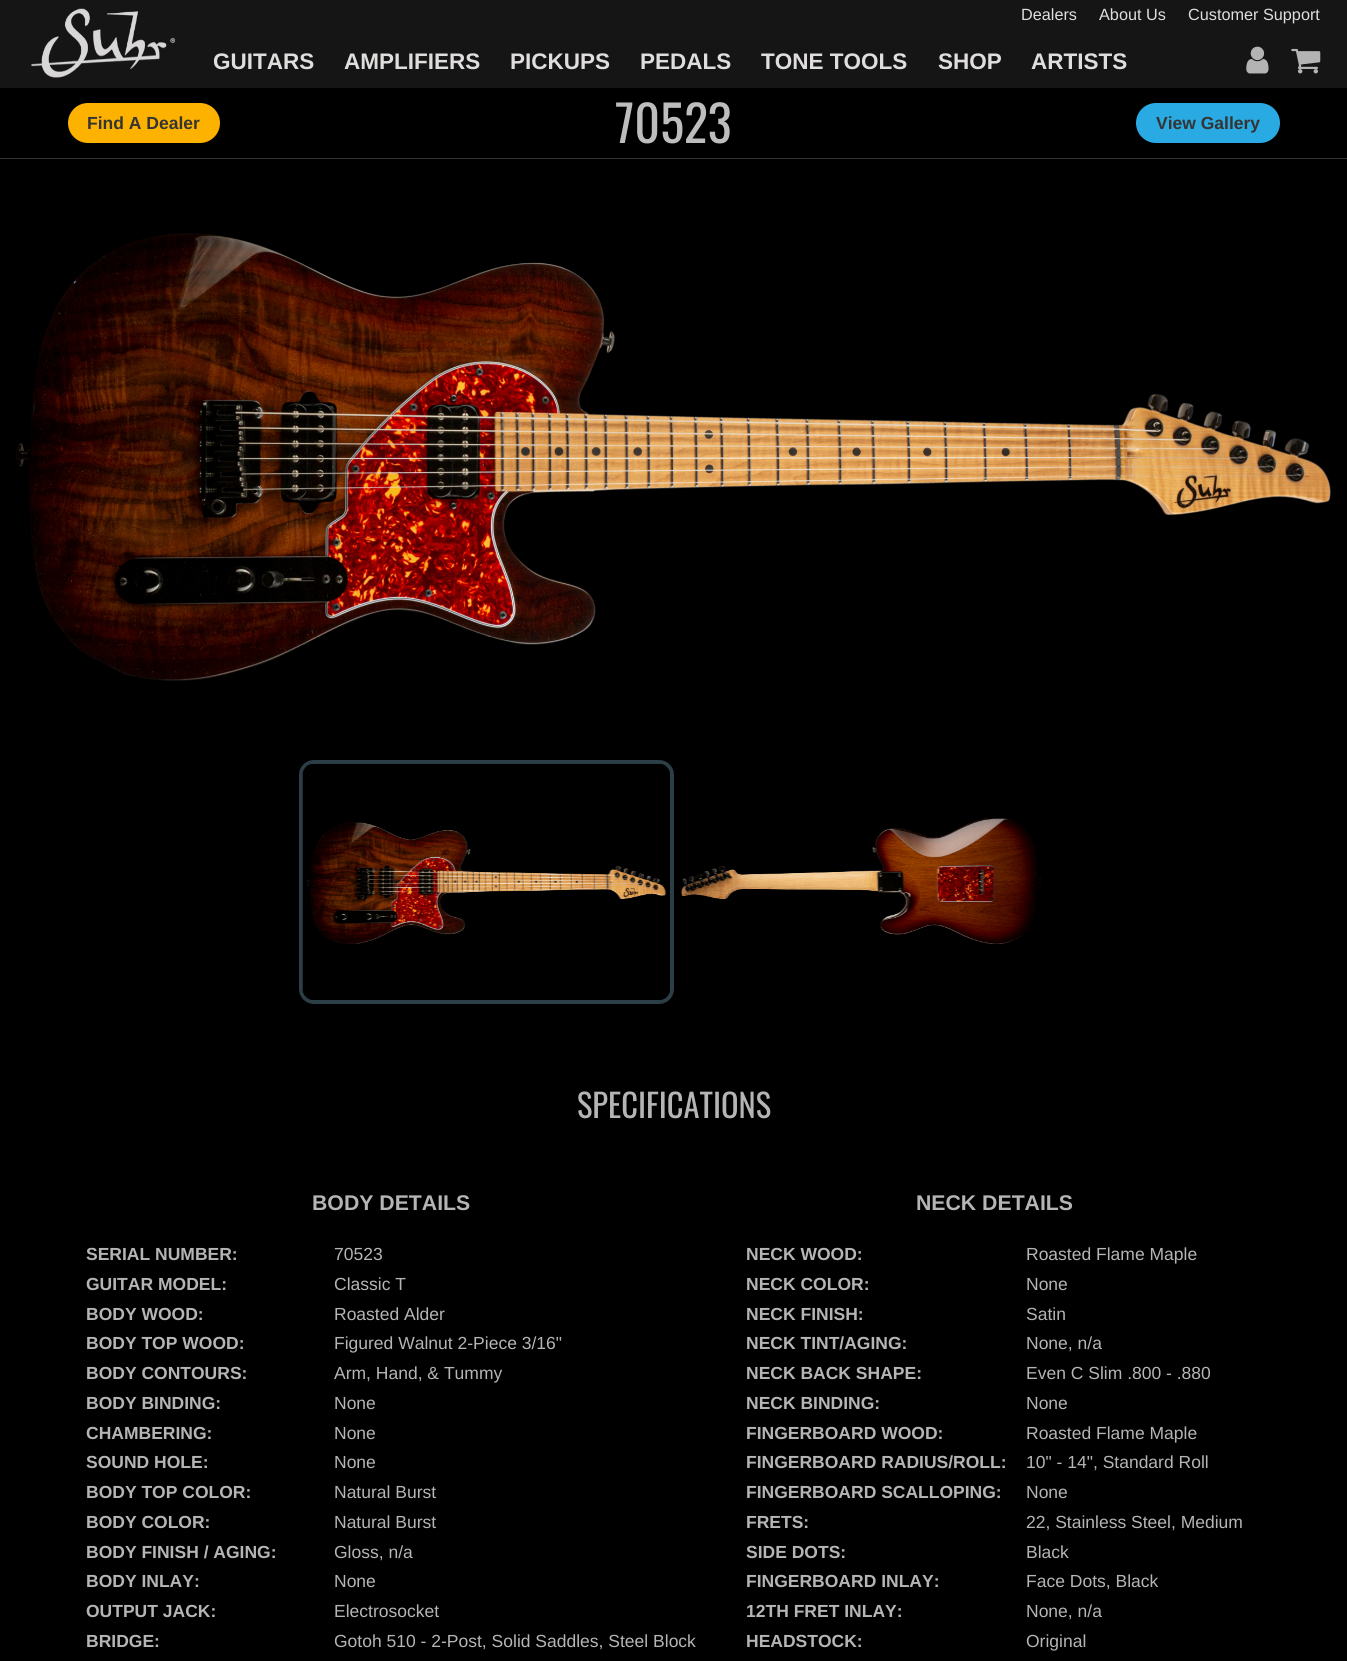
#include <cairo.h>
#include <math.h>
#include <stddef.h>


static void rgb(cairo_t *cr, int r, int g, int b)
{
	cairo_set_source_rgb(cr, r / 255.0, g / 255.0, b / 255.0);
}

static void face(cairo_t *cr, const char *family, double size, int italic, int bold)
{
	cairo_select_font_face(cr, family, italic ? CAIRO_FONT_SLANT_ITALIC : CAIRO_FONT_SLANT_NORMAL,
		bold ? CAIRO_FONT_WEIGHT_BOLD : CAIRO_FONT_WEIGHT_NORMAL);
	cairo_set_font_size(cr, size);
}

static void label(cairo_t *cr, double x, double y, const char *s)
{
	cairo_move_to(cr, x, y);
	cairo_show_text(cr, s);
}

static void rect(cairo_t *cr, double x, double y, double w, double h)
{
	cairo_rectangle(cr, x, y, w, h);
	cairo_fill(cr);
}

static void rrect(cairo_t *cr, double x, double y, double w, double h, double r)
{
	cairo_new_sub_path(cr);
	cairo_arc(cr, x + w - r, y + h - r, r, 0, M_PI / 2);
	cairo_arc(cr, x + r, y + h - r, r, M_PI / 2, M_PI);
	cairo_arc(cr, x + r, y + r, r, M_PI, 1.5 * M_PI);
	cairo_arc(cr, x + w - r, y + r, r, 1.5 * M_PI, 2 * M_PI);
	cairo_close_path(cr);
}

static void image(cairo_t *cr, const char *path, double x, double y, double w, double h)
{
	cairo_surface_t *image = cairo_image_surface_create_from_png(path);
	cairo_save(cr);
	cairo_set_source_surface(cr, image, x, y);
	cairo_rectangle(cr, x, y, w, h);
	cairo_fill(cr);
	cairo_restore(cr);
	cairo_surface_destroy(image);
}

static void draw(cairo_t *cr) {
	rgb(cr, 0, 0, 0);
	cairo_paint(cr);
	rgb(cr, 21, 21, 21);
	rect(cr, 0, 0, 1347, 88);
	image(cr, "image0.png", 31, 8, 144, 70);
	face(cr, "Liberation Sans", 16.25, 0, 0);
	rgb(cr, 224, 221, 221);
	label(cr, 1021, 20, "Dealers");
	label(cr, 1099, 20, "About Us");
	label(cr, 1188, 20, "Customer Support");
	face(cr, "Liberation Sans", 22.5, 0, 1);
	label(cr, 213, 69, "GUITARS");
	label(cr, 344, 69, "AMPLIFIERS");
	label(cr, 510, 69, "PICKUPS");
	label(cr, 640, 69, "PEDALS");
	label(cr, 761, 69, "TONE TOOLS");
	label(cr, 938, 69, "SHOP");
	label(cr, 1031, 69, "ARTISTS");
	image(cr, "image1.png", 1246, 46, 23, 28);
	image(cr, "image2.png", 1291, 48, 30, 26);
	rgb(cr, 51, 51, 51);
	rect(cr, 0, 158, 1347, 1);
	face(cr, "Oswald", 50, 0, 0);
	rgb(cr, 189, 189, 189);
	label(cr, 615, 143, "70523");
	image(cr, "image3.png", 16, 233, 1315, 448);
	rrect(cr, 301, 762, 371, 240, 13);
	rgb(cr, 44, 62, 70);
	cairo_set_line_width(cr, 4);
	cairo_stroke(cr);
	image(cr, "image4.png", 302, 763, 368, 237);
	image(cr, "image5.png", 680, 818, 361, 126);
	face(cr, "Oswald", 32.5, 0, 0);
	rgb(cr, 181, 181, 181);
	label(cr, 577, 1118, "SPECIFICATIONS");
	face(cr, "Liberation Sans", 21.25, 0, 1);
	label(cr, 312, 1210, "BODY DETAILS");
	face(cr, "Liberation Sans", 17.5, 0, 1);
	label(cr, 86, 1260, "SERIAL NUMBER:");
	face(cr, "Liberation Sans", 17.5, 0, 0);
	label(cr, 334, 1260, "70523");
	face(cr, "Liberation Sans", 17.5, 0, 1);
	label(cr, 86, 1290, "GUITAR MODEL:");
	face(cr, "Liberation Sans", 17.5, 0, 0);
	label(cr, 334, 1290, "Classic T");
	face(cr, "Liberation Sans", 17.5, 0, 1);
	label(cr, 86, 1320, "BODY WOOD:");
	face(cr, "Liberation Sans", 17.5, 0, 0);
	label(cr, 334, 1320, "Roasted Alder");
	face(cr, "Liberation Sans", 17.5, 0, 1);
	label(cr, 86, 1349, "BODY TOP WOOD:");
	face(cr, "Liberation Sans", 17.5, 0, 0);
	label(cr, 334, 1349, "Figured Walnut 2-Piece 3/16\"");
	face(cr, "Liberation Sans", 17.5, 0, 1);
	label(cr, 86, 1379, "BODY CONTOURS:");
	face(cr, "Liberation Sans", 17.5, 0, 0);
	label(cr, 334, 1379, "Arm, Hand, & Tummy");
	face(cr, "Liberation Sans", 17.5, 0, 1);
	label(cr, 86, 1409, "BODY BINDING:");
	face(cr, "Liberation Sans", 17.5, 0, 0);
	label(cr, 334, 1409, "None");
	face(cr, "Liberation Sans", 17.5, 0, 1);
	label(cr, 86, 1439, "CHAMBERING:");
	face(cr, "Liberation Sans", 17.5, 0, 0);
	label(cr, 334, 1439, "None");
	face(cr, "Liberation Sans", 17.5, 0, 1);
	label(cr, 86, 1468, "SOUND HOLE:");
	face(cr, "Liberation Sans", 17.5, 0, 0);
	label(cr, 334, 1468, "None");
	face(cr, "Liberation Sans", 17.5, 0, 1);
	label(cr, 86, 1498, "BODY TOP COLOR:");
	face(cr, "Liberation Sans", 17.5, 0, 0);
	label(cr, 334, 1498, "Natural Burst");
	face(cr, "Liberation Sans", 17.5, 0, 1);
	label(cr, 86, 1528, "BODY COLOR:");
	face(cr, "Liberation Sans", 17.5, 0, 0);
	label(cr, 334, 1528, "Natural Burst");
	face(cr, "Liberation Sans", 17.5, 0, 1);
	label(cr, 86, 1558, "BODY FINISH / AGING:");
	face(cr, "Liberation Sans", 17.5, 0, 0);
	label(cr, 334, 1558, "Gloss, n/a");
	face(cr, "Liberation Sans", 17.5, 0, 1);
	label(cr, 86, 1587, "BODY INLAY:");
	face(cr, "Liberation Sans", 17.5, 0, 0);
	label(cr, 334, 1587, "None");
	face(cr, "Liberation Sans", 17.5, 0, 1);
	label(cr, 86, 1617, "OUTPUT JACK:");
	face(cr, "Liberation Sans", 17.5, 0, 0);
	label(cr, 334, 1617, "Electrosocket");
	face(cr, "Liberation Sans", 17.5, 0, 1);
	label(cr, 86, 1647, "BRIDGE:");
	face(cr, "Liberation Sans", 17.5, 0, 0);
	label(cr, 334, 1647, "Gotoh 510 - 2-Post, Solid Saddles, Steel Block");
	face(cr, "Liberation Sans", 21.25, 0, 1);
	label(cr, 916, 1210, "NECK DETAILS");
	face(cr, "Liberation Sans", 17.5, 0, 1);
	label(cr, 746, 1260, "NECK WOOD:");
	face(cr, "Liberation Sans", 17.5, 0, 0);
	label(cr, 1026, 1260, "Roasted Flame Maple");
	face(cr, "Liberation Sans", 17.5, 0, 1);
	label(cr, 746, 1290, "NECK COLOR:");
	face(cr, "Liberation Sans", 17.5, 0, 0);
	label(cr, 1026, 1290, "None");
	face(cr, "Liberation Sans", 17.5, 0, 1);
	label(cr, 746, 1320, "NECK FINISH:");
	face(cr, "Liberation Sans", 17.5, 0, 0);
	label(cr, 1026, 1320, "Satin");
	face(cr, "Liberation Sans", 17.5, 0, 1);
	label(cr, 746, 1349, "NECK TINT/AGING:");
	face(cr, "Liberation Sans", 17.5, 0, 0);
	label(cr, 1026, 1349, "None, n/a");
	face(cr, "Liberation Sans", 17.5, 0, 1);
	label(cr, 746, 1379, "NECK BACK SHAPE:");
	face(cr, "Liberation Sans", 17.5, 0, 0);
	label(cr, 1026, 1379, "Even C Slim .800 - .880");
	face(cr, "Liberation Sans", 17.5, 0, 1);
	label(cr, 746, 1409, "NECK BINDING:");
	face(cr, "Liberation Sans", 17.5, 0, 0);
	label(cr, 1026, 1409, "None");
	face(cr, "Liberation Sans", 17.5, 0, 1);
	label(cr, 746, 1439, "FINGERBOARD WOOD:");
	face(cr, "Liberation Sans", 17.5, 0, 0);
	label(cr, 1026, 1439, "Roasted Flame Maple");
	face(cr, "Liberation Sans", 17.5, 0, 1);
	label(cr, 746, 1468, "FINGERBOARD RADIUS/ROLL:");
	face(cr, "Liberation Sans", 17.5, 0, 0);
	label(cr, 1026, 1468, "10\" - 14\", Standard Roll");
	face(cr, "Liberation Sans", 17.5, 0, 1);
	label(cr, 746, 1498, "FINGERBOARD SCALLOPING:");
	face(cr, "Liberation Sans", 17.5, 0, 0);
	label(cr, 1026, 1498, "None");
	face(cr, "Liberation Sans", 17.5, 0, 1);
	label(cr, 746, 1528, "FRETS:");
	face(cr, "Liberation Sans", 17.5, 0, 0);
	label(cr, 1026, 1528, "22, Stainless Steel, Medium");
	face(cr, "Liberation Sans", 17.5, 0, 1);
	label(cr, 746, 1558, "SIDE DOTS:");
	face(cr, "Liberation Sans", 17.5, 0, 0);
	label(cr, 1026, 1558, "Black");
	face(cr, "Liberation Sans", 17.5, 0, 1);
	label(cr, 746, 1587, "FINGERBOARD INLAY:");
	face(cr, "Liberation Sans", 17.5, 0, 0);
	label(cr, 1026, 1587, "Face Dots, Black");
	face(cr, "Liberation Sans", 17.5, 0, 1);
	label(cr, 746, 1617, "12TH FRET INLAY:");
	face(cr, "Liberation Sans", 17.5, 0, 0);
	label(cr, 1026, 1617, "None, n/a");
	face(cr, "Liberation Sans", 17.5, 0, 1);
	label(cr, 746, 1647, "HEADSTOCK:");
	face(cr, "Liberation Sans", 17.5, 0, 0);
	label(cr, 1026, 1647, "Original");
	rgb(cr, 253, 178, 0);
	rrect(cr, 68, 103, 152, 40, 20);
	cairo_fill(cr);
	face(cr, "Liberation Sans", 17.5, 0, 1);
	rgb(cr, 53, 52, 52);
	label(cr, 87, 129, "Find A Dealer");
	rgb(cr, 41, 170, 226);
	rrect(cr, 1136, 103, 144, 40, 20);
	cairo_fill(cr);
	rgb(cr, 53, 52, 52);
	label(cr, 1156, 129, "View Gallery");
}

int main(void) {
	cairo_surface_t *surface = cairo_image_surface_create(CAIRO_FORMAT_RGB24, 1347, 1661);
	cairo_t *cr = cairo_create(surface);
	cairo_font_options_t *options = cairo_font_options_create();
	cairo_font_options_set_hint_metrics(options, CAIRO_HINT_METRICS_OFF);
	cairo_font_options_set_hint_style(options, CAIRO_HINT_STYLE_NONE);
	cairo_set_font_options(cr, options);
	cairo_set_miter_limit(cr, 4);
	draw(cr);
	cairo_surface_write_to_png(surface, "render.png");
	cairo_font_options_destroy(options);
	cairo_destroy(cr);
	cairo_surface_destroy(surface);
	return 0;
}
